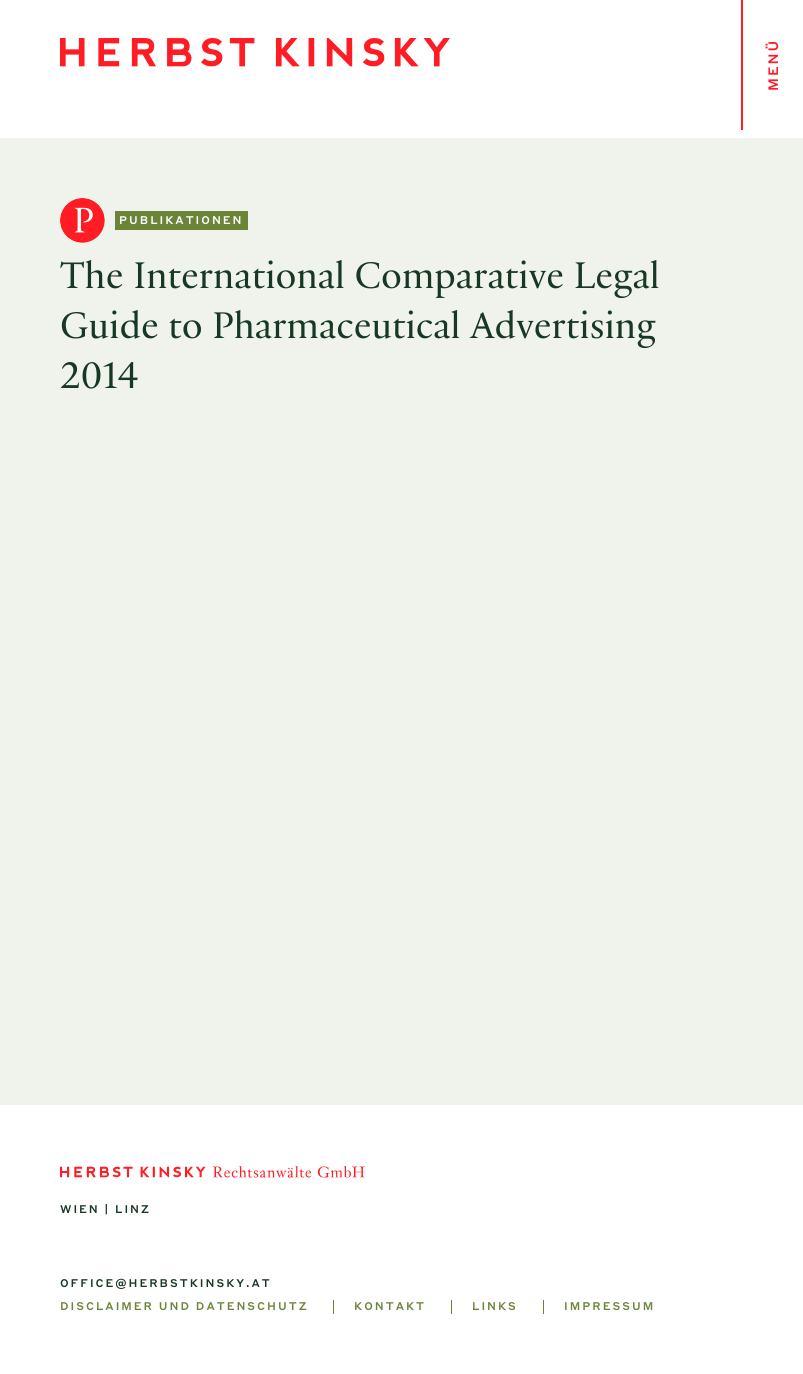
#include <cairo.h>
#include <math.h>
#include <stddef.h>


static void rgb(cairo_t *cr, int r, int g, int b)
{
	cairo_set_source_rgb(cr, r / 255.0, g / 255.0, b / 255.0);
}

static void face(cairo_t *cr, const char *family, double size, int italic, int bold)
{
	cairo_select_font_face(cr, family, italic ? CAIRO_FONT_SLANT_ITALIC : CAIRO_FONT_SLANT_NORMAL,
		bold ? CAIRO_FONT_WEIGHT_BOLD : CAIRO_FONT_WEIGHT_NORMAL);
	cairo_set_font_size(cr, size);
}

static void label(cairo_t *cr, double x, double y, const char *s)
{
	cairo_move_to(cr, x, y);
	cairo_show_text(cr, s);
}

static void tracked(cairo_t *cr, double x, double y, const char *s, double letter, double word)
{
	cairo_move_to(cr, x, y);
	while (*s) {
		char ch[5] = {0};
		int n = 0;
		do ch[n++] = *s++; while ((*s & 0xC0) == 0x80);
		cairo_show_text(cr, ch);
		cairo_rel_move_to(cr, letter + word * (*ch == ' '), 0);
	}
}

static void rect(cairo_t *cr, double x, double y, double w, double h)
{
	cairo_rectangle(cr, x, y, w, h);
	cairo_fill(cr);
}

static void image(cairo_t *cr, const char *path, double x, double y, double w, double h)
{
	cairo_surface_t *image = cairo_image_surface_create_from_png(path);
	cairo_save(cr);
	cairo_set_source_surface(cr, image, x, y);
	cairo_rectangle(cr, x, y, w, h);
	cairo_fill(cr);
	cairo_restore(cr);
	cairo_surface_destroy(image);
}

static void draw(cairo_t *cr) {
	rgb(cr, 255, 255, 255);
	cairo_paint(cr);
	image(cr, "image0.png", 60, 38, 390, 29);
	rgb(cr, 255, 28, 36);
	rect(cr, 741, 0, 2, 130);
	face(cr, "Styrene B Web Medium", 13.5, 0, 0);
	cairo_save(cr);
	cairo_translate(cr, 778, 91);
	cairo_rotate(cr, -90 * M_PI / 180);
	tracked(cr, 0, 0, "MENÜ", 2, 0);
	cairo_restore(cr);
	rgb(cr, 240, 243, 235);
	rect(cr, 0, 138, 803, 967);
	image(cr, "image1.png", 60, 198, 45, 45);
	rgb(cr, 107, 133, 56);
	rect(cr, 115, 211, 133, 19);
	face(cr, "Styrene B Web Medium", 11, 0, 0);
	rgb(cr, 255, 255, 255);
	tracked(cr, 119, 224, "PUBLIKATIONEN", 2, 0);
	face(cr, "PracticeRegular", 40, 0, 0);
	rgb(cr, 23, 56, 36);
	label(cr, 60, 288, "The International Comparative Legal");
	label(cr, 60, 338, "Guide to Pharmaceutical Advertising");
	label(cr, 60, 388, "2014");
	image(cr, "image2.png", 60, 1166, 305, 12);
	face(cr, "Styrene B Web Medium", 11, 0, 0);
	tracked(cr, 60, 1213, "WIEN | LINZ", 2, 0);
	tracked(cr, 60, 1287, "OFFICE@HERBSTKINSKY.AT", 2, 0);
	rgb(cr, 107, 133, 56);
	tracked(cr, 60, 1310, "DISCLAIMER UND DATENSCHUTZ", 2, 0);
	rect(cr, 333, 1300, 1, 14);
	tracked(cr, 354, 1310, "KONTAKT", 2, 0);
	rect(cr, 451, 1300, 1, 14);
	tracked(cr, 472, 1310, "LINKS", 2, 0);
	rect(cr, 543, 1300, 1, 14);
	tracked(cr, 564, 1310, "IMPRESSUM", 2, 0);
}

int main(void) {
	cairo_surface_t *surface = cairo_image_surface_create(CAIRO_FORMAT_RGB24, 803, 1374);
	cairo_t *cr = cairo_create(surface);
	cairo_font_options_t *options = cairo_font_options_create();
	cairo_font_options_set_hint_metrics(options, CAIRO_HINT_METRICS_OFF);
	cairo_font_options_set_hint_style(options, CAIRO_HINT_STYLE_NONE);
	cairo_set_font_options(cr, options);
	cairo_set_miter_limit(cr, 4);
	draw(cr);
	cairo_surface_write_to_png(surface, "render.png");
	cairo_font_options_destroy(options);
	cairo_destroy(cr);
	cairo_surface_destroy(surface);
	return 0;
}
